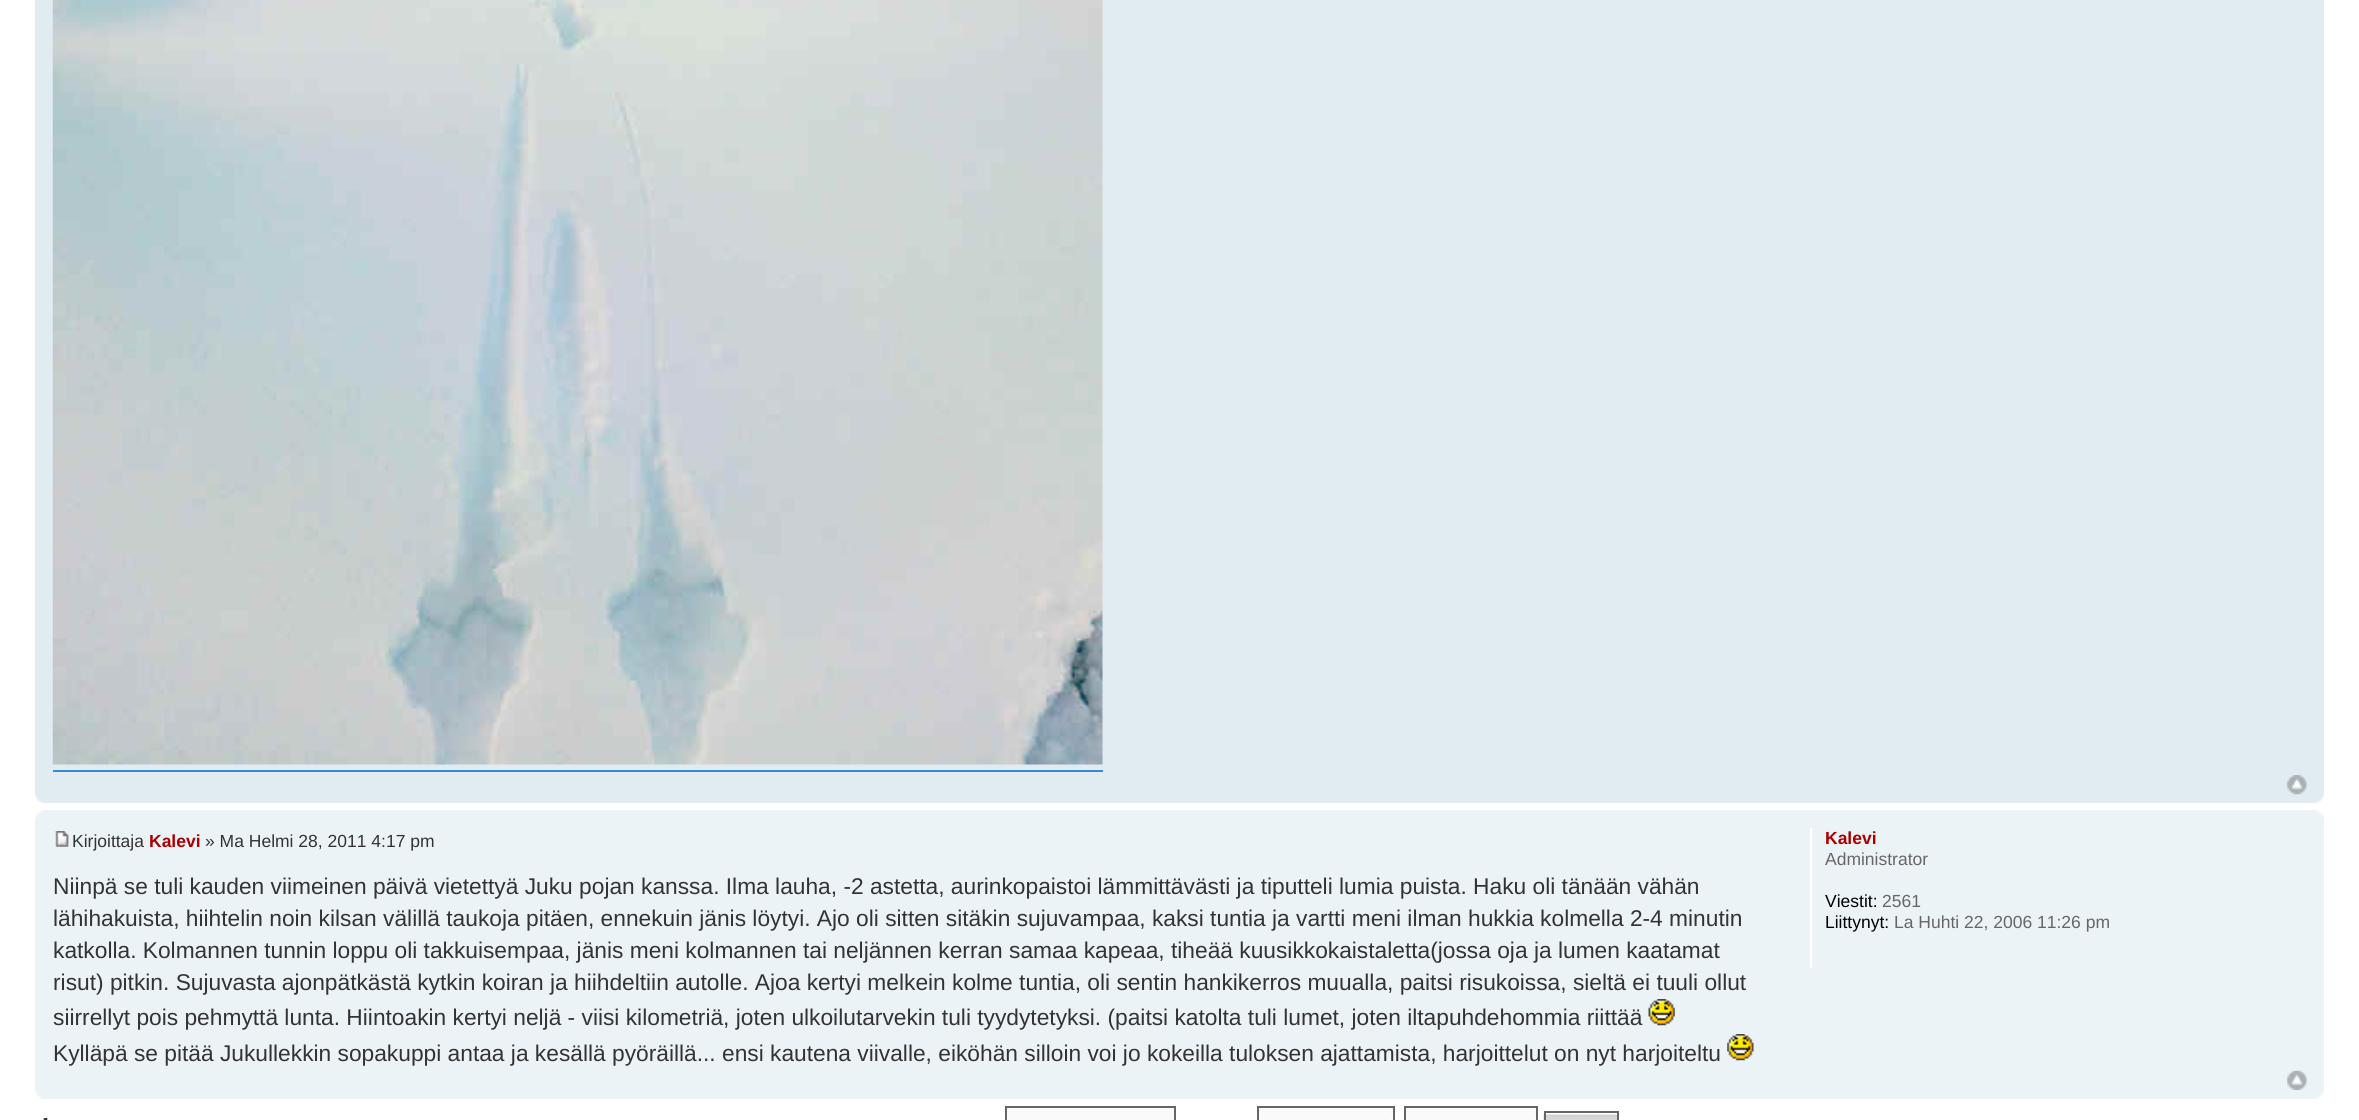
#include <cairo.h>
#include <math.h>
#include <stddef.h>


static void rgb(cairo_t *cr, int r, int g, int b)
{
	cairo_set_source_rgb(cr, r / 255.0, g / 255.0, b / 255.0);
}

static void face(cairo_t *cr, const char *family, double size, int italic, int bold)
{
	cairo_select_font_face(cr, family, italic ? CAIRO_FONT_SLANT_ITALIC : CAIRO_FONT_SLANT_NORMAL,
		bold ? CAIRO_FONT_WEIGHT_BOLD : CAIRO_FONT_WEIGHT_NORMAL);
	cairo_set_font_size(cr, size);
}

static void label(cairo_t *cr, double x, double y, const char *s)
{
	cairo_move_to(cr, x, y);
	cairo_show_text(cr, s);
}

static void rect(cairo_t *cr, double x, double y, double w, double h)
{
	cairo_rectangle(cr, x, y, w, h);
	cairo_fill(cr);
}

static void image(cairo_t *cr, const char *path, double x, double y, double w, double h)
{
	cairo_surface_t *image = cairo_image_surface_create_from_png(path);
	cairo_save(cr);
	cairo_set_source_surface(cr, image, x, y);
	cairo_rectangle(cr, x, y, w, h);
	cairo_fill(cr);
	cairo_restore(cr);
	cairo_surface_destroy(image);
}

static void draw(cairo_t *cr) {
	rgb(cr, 255, 255, 255);
	cairo_paint(cr);
	rgb(cr, 225, 235, 242);
	rect(cr, 35, 0, 2289, 803);
	image(cr, "image0.png", 52, 0, 1051, 765);
	rgb(cr, 54, 138, 210);
	rect(cr, 53, 770, 1050, 2);
	image(cr, "image1.png", 2287, 775, 20, 20);
	image(cr, "image2.png", 35, 794, 9, 9);
	image(cr, "image3.png", 2315, 794, 9, 9);
	rgb(cr, 236, 243, 247);
	rect(cr, 35, 810, 2289, 289);
	image(cr, "image4.png", 35, 810, 8, 8);
	image(cr, "image5.png", 2316, 810, 8, 8);
	image(cr, "image6.png", 55, 831, 14, 16);
	face(cr, "Liberation Sans", 17.5, 0, 0);
	rgb(cr, 51, 51, 51);
	label(cr, 72, 847, "Kirjoittaja");
	face(cr, "Liberation Sans", 17.5, 0, 1);
	rgb(cr, 170, 0, 0);
	label(cr, 149, 847, "Kalevi");
	face(cr, "Liberation Sans", 17.5, 0, 0);
	rgb(cr, 51, 51, 51);
	label(cr, 205, 847, "» Ma Helmi 28, 2011 4:17 pm");
	face(cr, "Liberation Sans", 22.75, 0, 0);
	label(cr, 53, 894, "Niinpä se tuli kauden viimeinen päivä vietettyä Juku pojan kanssa. Ilma lauha, -2 astetta, aurinkopaistoi lämmittävästi ja tiputteli lumia puista. Haku oli tänään vähän");
	label(cr, 53, 926, "lähihakuista, hiihtelin noin kilsan välillä taukoja pitäen, ennekuin jänis löytyi. Ajo oli sitten sitäkin sujuvampaa, kaksi tuntia ja vartti meni ilman hukkia kolmella 2-4 minutin");
	label(cr, 53, 958, "katkolla. Kolmannen tunnin loppu oli takkuisempaa, jänis meni kolmannen tai neljännen kerran samaa kapeaa, tiheää kuusikkokaistaletta(jossa oja ja lumen kaatamat");
	label(cr, 53, 990, "risut) pitkin. Sujuvasta ajonpätkästä kytkin koiran ja hiihdeltiin autolle. Ajoa kertyi melkein kolme tuntia, oli sentin hankikerros muualla, paitsi risukoissa, sieltä ei tuuli ollut");
	label(cr, 53, 1025, "siirrellyt pois pehmyttä lunta. Hiintoakin kertyi neljä - viisi kilometriä, joten ulkoilutarvekin tuli tyydytetyksi. (paitsi katolta tuli lumet, joten iltapuhdehommia riittää");
	image(cr, "image7.png", 1648, 999, 27, 27);
	label(cr, 53, 1061, "Kylläpä se pitää Jukullekkin sopakuppi antaa ja kesällä pyöräillä... ensi kautena viivalle, eiköhän silloin voi jo kokeilla tuloksen ajattamista, harjoittelut on nyt harjoiteltu");
	image(cr, "image8.png", 1727, 1034, 27, 27);
	rgb(cr, 255, 255, 255);
	rect(cr, 1810, 828, 2, 140);
	face(cr, "Liberation Sans", 17.5, 0, 1);
	rgb(cr, 170, 0, 0);
	label(cr, 1825, 844, "Kalevi");
	face(cr, "Liberation Sans", 17.5, 0, 0);
	rgb(cr, 102, 102, 102);
	label(cr, 1825, 865, "Administrator");
	rgb(cr, 0, 0, 0);
	label(cr, 1825, 907, "Viestit:");
	rgb(cr, 102, 102, 102);
	label(cr, 1882, 907, "2561");
	rgb(cr, 0, 0, 0);
	label(cr, 1825, 928, "Liittynyt:");
	rgb(cr, 102, 102, 102);
	label(cr, 1894, 928, "La Huhti 22, 2006 11:26 pm");
	image(cr, "image9.png", 2287, 1070, 20, 20);
	image(cr, "image10.png", 35, 1090, 8, 9);
	image(cr, "image11.png", 2316, 1090, 8, 9);
	image(cr, "image12.png", 43, 1118, 5, 2);
	rgb(cr, 250, 250, 250);
	cairo_rectangle(cr, 1006, 1107, 169, 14);
	cairo_fill_preserve(cr);
	rgb(cr, 102, 102, 102);
	cairo_stroke(cr);
	cairo_new_path(cr);
	cairo_move_to(cr, 1152.5, 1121);
	cairo_line_to(cr, 1159.5, 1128);
	cairo_line_to(cr, 1166.5, 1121);
	rgb(cr, 0, 0, 0);
	cairo_set_line_width(cr, 3.5);
	cairo_stroke(cr);
	rgb(cr, 250, 250, 250);
	cairo_rectangle(cr, 1258, 1107, 136, 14);
	cairo_fill_preserve(cr);
	rgb(cr, 102, 102, 102);
	cairo_set_line_width(cr, 2);
	cairo_stroke(cr);
	cairo_new_path(cr);
	cairo_move_to(cr, 1372, 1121);
	cairo_line_to(cr, 1379, 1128);
	cairo_line_to(cr, 1386, 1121);
	rgb(cr, 0, 0, 0);
	cairo_set_line_width(cr, 3.5);
	cairo_stroke(cr);
	rgb(cr, 250, 250, 250);
	cairo_rectangle(cr, 1405, 1107, 132, 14);
	cairo_fill_preserve(cr);
	rgb(cr, 102, 102, 102);
	cairo_set_line_width(cr, 2);
	cairo_stroke(cr);
	cairo_new_path(cr);
	cairo_move_to(cr, 1516, 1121);
	cairo_line_to(cr, 1523, 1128);
	cairo_line_to(cr, 1530, 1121);
	rgb(cr, 0, 0, 0);
	cairo_set_line_width(cr, 3.5);
	cairo_stroke(cr);
	image(cr, "image13.png", 1543, 1113, 74, 7);
	cairo_rectangle(cr, 1545, 1112, 73, 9);
	rgb(cr, 102, 102, 102);
	cairo_set_line_width(cr, 2);
	cairo_stroke(cr);
}

int main(void) {
	cairo_surface_t *surface = cairo_image_surface_create(CAIRO_FORMAT_RGB24, 2359, 1120);
	cairo_t *cr = cairo_create(surface);
	cairo_font_options_t *options = cairo_font_options_create();
	cairo_font_options_set_hint_metrics(options, CAIRO_HINT_METRICS_OFF);
	cairo_font_options_set_hint_style(options, CAIRO_HINT_STYLE_NONE);
	cairo_set_font_options(cr, options);
	cairo_set_miter_limit(cr, 4);
	draw(cr);
	cairo_surface_write_to_png(surface, "render.png");
	cairo_font_options_destroy(options);
	cairo_destroy(cr);
	cairo_surface_destroy(surface);
	return 0;
}
